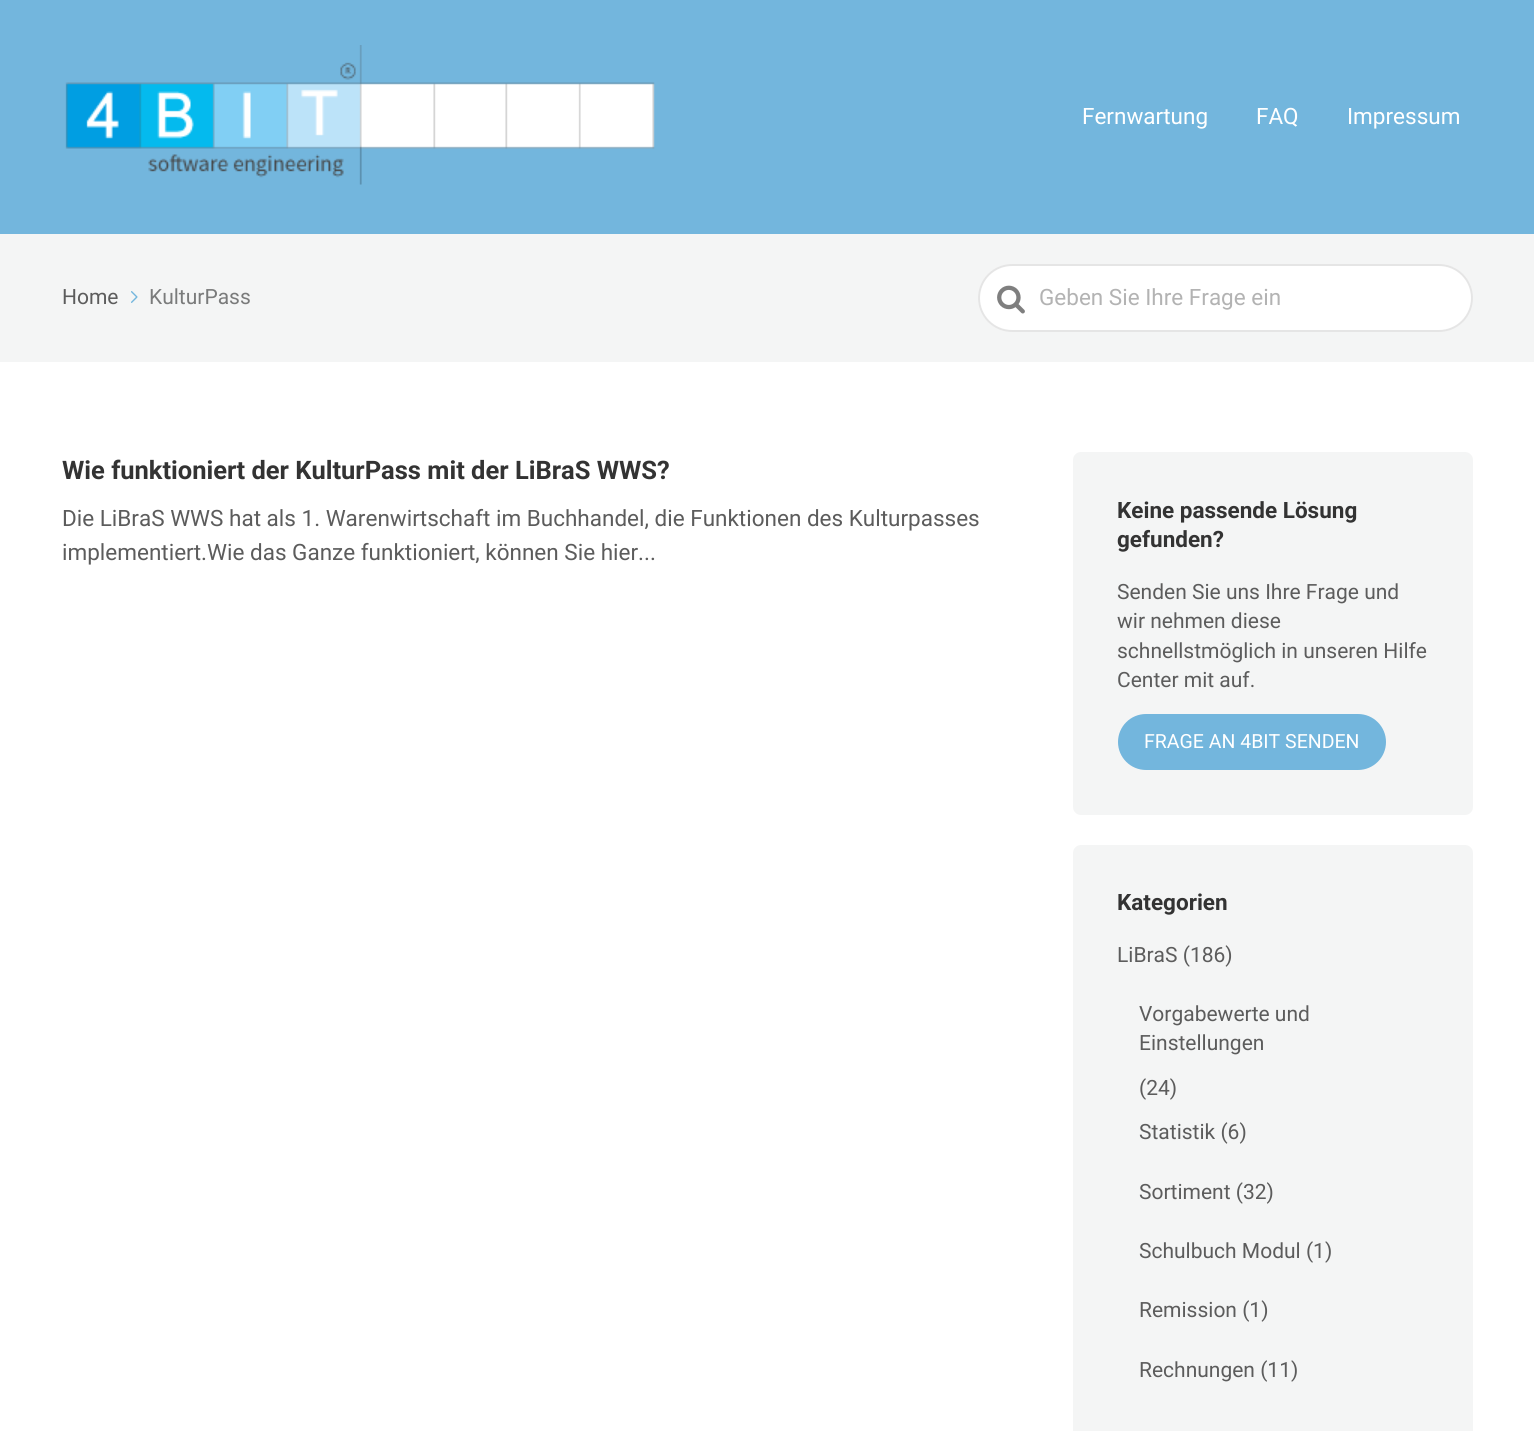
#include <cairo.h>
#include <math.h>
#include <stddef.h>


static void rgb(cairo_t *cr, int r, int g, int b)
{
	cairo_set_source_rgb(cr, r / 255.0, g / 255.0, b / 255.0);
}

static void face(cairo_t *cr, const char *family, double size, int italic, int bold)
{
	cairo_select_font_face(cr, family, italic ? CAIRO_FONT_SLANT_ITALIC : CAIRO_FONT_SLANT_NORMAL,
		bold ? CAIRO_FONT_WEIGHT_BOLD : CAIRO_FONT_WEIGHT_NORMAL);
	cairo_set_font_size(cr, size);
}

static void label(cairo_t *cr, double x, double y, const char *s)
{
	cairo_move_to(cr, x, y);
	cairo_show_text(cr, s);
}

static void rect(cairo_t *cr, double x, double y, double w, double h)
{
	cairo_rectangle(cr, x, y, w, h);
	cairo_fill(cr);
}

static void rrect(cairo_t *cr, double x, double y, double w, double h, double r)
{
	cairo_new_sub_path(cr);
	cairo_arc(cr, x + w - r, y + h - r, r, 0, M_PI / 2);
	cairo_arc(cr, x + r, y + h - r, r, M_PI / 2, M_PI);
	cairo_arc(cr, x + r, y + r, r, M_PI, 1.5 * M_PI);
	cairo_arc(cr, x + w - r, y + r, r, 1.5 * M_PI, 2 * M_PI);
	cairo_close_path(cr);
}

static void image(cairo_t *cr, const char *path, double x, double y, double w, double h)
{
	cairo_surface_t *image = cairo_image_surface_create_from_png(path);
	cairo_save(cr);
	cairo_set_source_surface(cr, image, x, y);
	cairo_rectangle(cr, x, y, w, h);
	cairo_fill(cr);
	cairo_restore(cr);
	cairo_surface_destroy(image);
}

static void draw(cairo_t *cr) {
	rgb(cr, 255, 255, 255);
	cairo_paint(cr);
	rgb(cr, 115, 182, 221);
	rect(cr, 0, 0, 1534, 234);
	image(cr, "image0.png", 65, 45, 590, 140);
	face(cr, "Roboto", 22.5, 0, 0);
	rgb(cr, 255, 255, 255);
	label(cr, 1082, 124, "Fernwartung");
	label(cr, 1256, 124, "FAQ");
	label(cr, 1347, 124, "Impressum");
	rgb(cr, 244, 245, 245);
	rect(cr, 0, 234, 1534, 128);
	face(cr, "Roboto", 21, 0, 0);
	rgb(cr, 92, 92, 92);
	label(cr, 62, 304, "Home");
	image(cr, "image1.png", 131, 291, 7, 12);
	rgb(cr, 122, 123, 123);
	label(cr, 149, 304, "KulturPass");
	rgb(cr, 255, 255, 255);
	rrect(cr, 978, 264, 495, 68, 34);
	cairo_fill(cr);
	rrect(cr, 979, 265, 493, 66, 33);
	cairo_set_source_rgba(cr, 0.8, 0.8, 0.8, 0.5);
	cairo_stroke(cr);
	image(cr, "image2.png", 997, 285, 28, 29);
	face(cr, "Roboto", 22.5, 0, 0);
	rgb(cr, 179, 179, 179);
	label(cr, 1039, 305, "Geben Sie Ihre Frage ein");
	face(cr, "Roboto", 25.5, 0, 1);
	rgb(cr, 51, 51, 51);
	label(cr, 62, 479, "Wie funktioniert der KulturPass mit der LiBraS WWS?");
	face(cr, "Roboto", 22.5, 0, 0);
	rgb(cr, 92, 92, 92);
	label(cr, 62, 526, "Die LiBraS WWS hat als 1. Warenwirtschaft im Buchhandel, die Funktionen des Kulturpasses");
	label(cr, 62, 560, "implementiert.Wie das Ganze funktioniert, können Sie hier...");
	rgb(cr, 244, 245, 245);
	rrect(cr, 1073, 452, 400, 363, 8);
	cairo_fill(cr);
	face(cr, "Roboto", 22.5, 0, 1);
	rgb(cr, 51, 51, 51);
	label(cr, 1117, 518, "Keine passende Lösung");
	label(cr, 1117, 547, "gefunden?");
	face(cr, "Roboto", 21, 0, 0);
	rgb(cr, 92, 92, 92);
	label(cr, 1117, 599, "Senden Sie uns Ihre Frage und");
	label(cr, 1117, 628, "wir nehmen diese");
	label(cr, 1117, 658, "schnellstmöglich in unseren Hilfe");
	label(cr, 1117, 687, "Center mit auf.");
	rgb(cr, 115, 182, 221);
	rrect(cr, 1118, 714, 268, 56, 28);
	cairo_fill(cr);
	face(cr, "Roboto", 19.5, 0, 0);
	rgb(cr, 255, 255, 255);
	label(cr, 1144, 748, "FRAGE AN 4BIT SENDEN");
	rgb(cr, 244, 245, 245);
	rrect(cr, 1073, 845, 400, 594, 8);
	cairo_fill(cr);
	face(cr, "Roboto", 22.5, 0, 1);
	rgb(cr, 51, 51, 51);
	label(cr, 1117, 910, "Kategorien");
	face(cr, "Roboto", 21, 0, 0);
	rgb(cr, 92, 92, 92);
	label(cr, 1117, 962, "LiBraS (186)");
	label(cr, 1139, 1021, "Vorgabewerte und");
	label(cr, 1139, 1050, "Einstellungen");
	label(cr, 1139, 1095, "(24)");
	label(cr, 1139, 1139, "Statistik (6)");
	label(cr, 1139, 1199, "Sortiment (32)");
	label(cr, 1139, 1258, "Schulbuch Modul (1)");
	label(cr, 1139, 1317, "Remission (1)");
	label(cr, 1139, 1377, "Rechnungen (11)");
}

int main(void) {
	cairo_surface_t *surface = cairo_image_surface_create(CAIRO_FORMAT_RGB24, 1534, 1431);
	cairo_t *cr = cairo_create(surface);
	cairo_font_options_t *options = cairo_font_options_create();
	cairo_font_options_set_hint_metrics(options, CAIRO_HINT_METRICS_OFF);
	cairo_font_options_set_hint_style(options, CAIRO_HINT_STYLE_NONE);
	cairo_set_font_options(cr, options);
	cairo_set_miter_limit(cr, 4);
	draw(cr);
	cairo_surface_write_to_png(surface, "render.png");
	cairo_font_options_destroy(options);
	cairo_destroy(cr);
	cairo_surface_destroy(surface);
	return 0;
}
